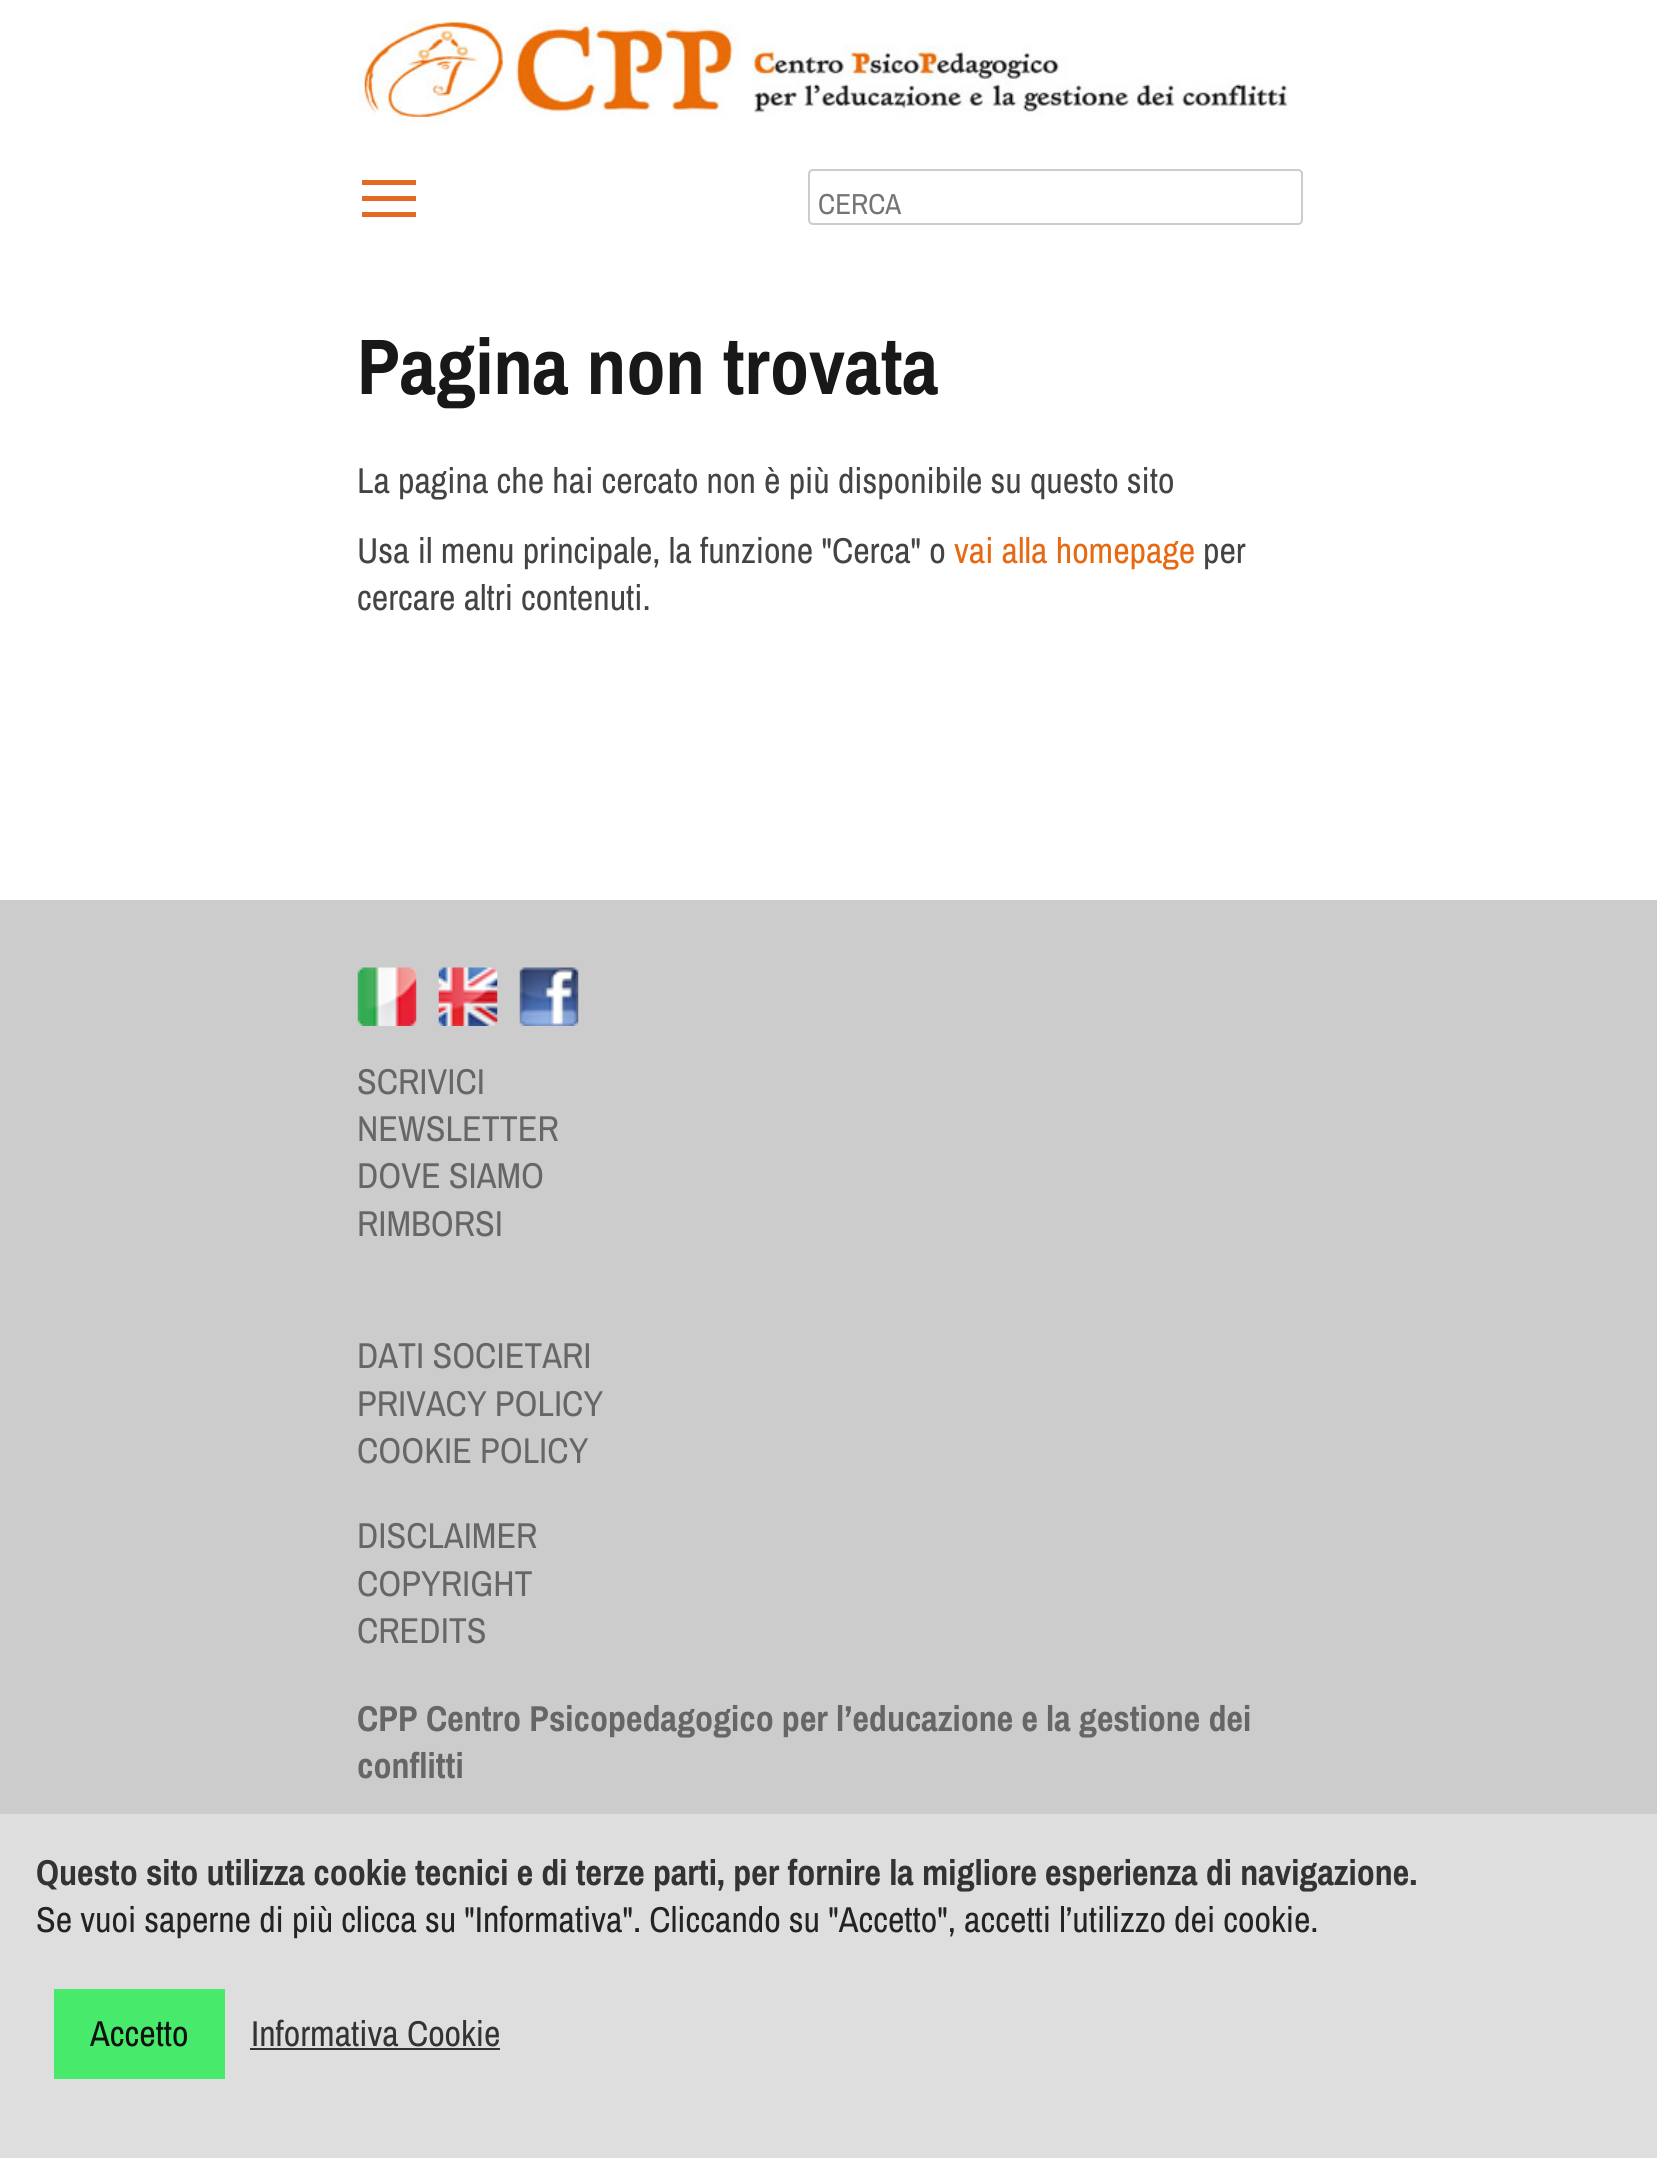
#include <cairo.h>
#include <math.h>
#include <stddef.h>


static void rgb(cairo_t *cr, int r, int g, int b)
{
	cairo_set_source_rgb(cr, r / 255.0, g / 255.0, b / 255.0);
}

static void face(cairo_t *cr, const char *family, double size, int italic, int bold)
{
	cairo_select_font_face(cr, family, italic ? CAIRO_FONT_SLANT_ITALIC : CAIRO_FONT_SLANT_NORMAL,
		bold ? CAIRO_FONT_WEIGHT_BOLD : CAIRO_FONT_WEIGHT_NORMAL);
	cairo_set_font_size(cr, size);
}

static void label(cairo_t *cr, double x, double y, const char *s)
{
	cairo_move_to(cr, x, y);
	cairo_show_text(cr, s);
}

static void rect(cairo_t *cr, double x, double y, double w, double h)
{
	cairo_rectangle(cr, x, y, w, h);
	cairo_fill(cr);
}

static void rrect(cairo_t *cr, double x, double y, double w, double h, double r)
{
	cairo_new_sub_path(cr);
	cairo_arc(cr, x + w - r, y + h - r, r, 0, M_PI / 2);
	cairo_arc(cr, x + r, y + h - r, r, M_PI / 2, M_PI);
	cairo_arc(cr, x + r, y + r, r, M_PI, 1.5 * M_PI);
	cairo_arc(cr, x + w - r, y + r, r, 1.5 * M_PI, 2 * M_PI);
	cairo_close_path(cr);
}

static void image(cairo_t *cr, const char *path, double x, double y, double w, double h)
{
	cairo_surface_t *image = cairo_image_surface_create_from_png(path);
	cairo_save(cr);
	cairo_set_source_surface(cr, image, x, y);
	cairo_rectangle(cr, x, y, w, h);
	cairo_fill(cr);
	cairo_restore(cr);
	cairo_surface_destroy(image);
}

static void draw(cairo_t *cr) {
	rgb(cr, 255, 255, 255);
	cairo_paint(cr);
	rgb(cr, 229, 105, 37);
	rect(cr, 362, 196, 54, 5);
	rect(cr, 362, 180, 54, 5);
	rect(cr, 362, 212, 54, 5);
	image(cr, "image0.png", 358, 22, 931, 102);
	rrect(cr, 809, 170, 493, 54, 4);
	rgb(cr, 204, 204, 204);
	cairo_stroke(cr);
	face(cr, "Archivo Narrow", 29, 0, 0);
	rgb(cr, 117, 117, 117);
	label(cr, 818, 214, "CERCA");
	face(cr, "Archivo Narrow", 78.75, 0, 1);
	rgb(cr, 24, 24, 24);
	label(cr, 357, 394, "Pagina non trovata");
	face(cr, "Archivo Narrow", 36, 0, 0);
	rgb(cr, 68, 68, 68);
	label(cr, 357, 493, "La pagina che hai cercato non è più disponibile su questo sito");
	label(cr, 357, 563, "Usa il menu principale, la funzione \"Cerca\" o");
	rgb(cr, 231, 105, 18);
	label(cr, 954, 563, "vai alla homepage");
	rgb(cr, 68, 68, 68);
	label(cr, 1203, 563, "per");
	label(cr, 357, 610, "cercare altri contenuti.");
	rgb(cr, 204, 204, 204);
	rect(cr, 0, 900, 1657, 914);
	image(cr, "image1.png", 357, 967, 60, 59);
	image(cr, "image2.png", 438, 967, 60, 59);
	image(cr, "image3.png", 519, 967, 60, 59);
	rgb(cr, 102, 102, 102);
	label(cr, 357, 1094, "SCRIVICI");
	label(cr, 357, 1141, "NEWSLETTER");
	label(cr, 357, 1188, "DOVE SIAMO");
	label(cr, 357, 1236, "RIMBORSI");
	label(cr, 357, 1368, "DATI SOCIETARI");
	label(cr, 357, 1416, "PRIVACY POLICY");
	label(cr, 357, 1463, "COOKIE POLICY");
	label(cr, 357, 1548, "DISCLAIMER");
	label(cr, 357, 1596, "COPYRIGHT");
	label(cr, 357, 1643, "CREDITS");
	face(cr, "Archivo Narrow", 36, 0, 1);
	label(cr, 357, 1731, "CPP Centro Psicopedagogico per l’educazione e la gestione dei");
	label(cr, 357, 1778, "conflitti");
	rgb(cr, 222, 222, 222);
	rect(cr, 0, 1814, 1657, 344);
	rgb(cr, 51, 51, 51);
	label(cr, 36, 1885, "Questo sito utilizza cookie tecnici e di terze parti, per fornire la migliore esperienza di navigazione.");
	face(cr, "Archivo Narrow", 36, 0, 0);
	rgb(cr, 35, 35, 35);
	label(cr, 36, 1932, "Se vuoi saperne di più clicca su \"Informativa\". Cliccando su \"Accetto\", accetti l’utilizzo dei cookie.");
	rgb(cr, 72, 234, 107);
	rect(cr, 54, 1989, 171, 90);
	rgb(cr, 17, 17, 17);
	label(cr, 90, 2046, "Accetto");
	rgb(cr, 51, 51, 51);
	label(cr, 251, 2046, "Informativa Cookie");
	rect(cr, 250, 2048, 250, 2);
}

int main(void) {
	cairo_surface_t *surface = cairo_image_surface_create(CAIRO_FORMAT_RGB24, 1657, 2158);
	cairo_t *cr = cairo_create(surface);
	cairo_font_options_t *options = cairo_font_options_create();
	cairo_font_options_set_hint_metrics(options, CAIRO_HINT_METRICS_OFF);
	cairo_font_options_set_hint_style(options, CAIRO_HINT_STYLE_NONE);
	cairo_set_font_options(cr, options);
	cairo_set_miter_limit(cr, 4);
	draw(cr);
	cairo_surface_write_to_png(surface, "render.png");
	cairo_font_options_destroy(options);
	cairo_destroy(cr);
	cairo_surface_destroy(surface);
	return 0;
}
